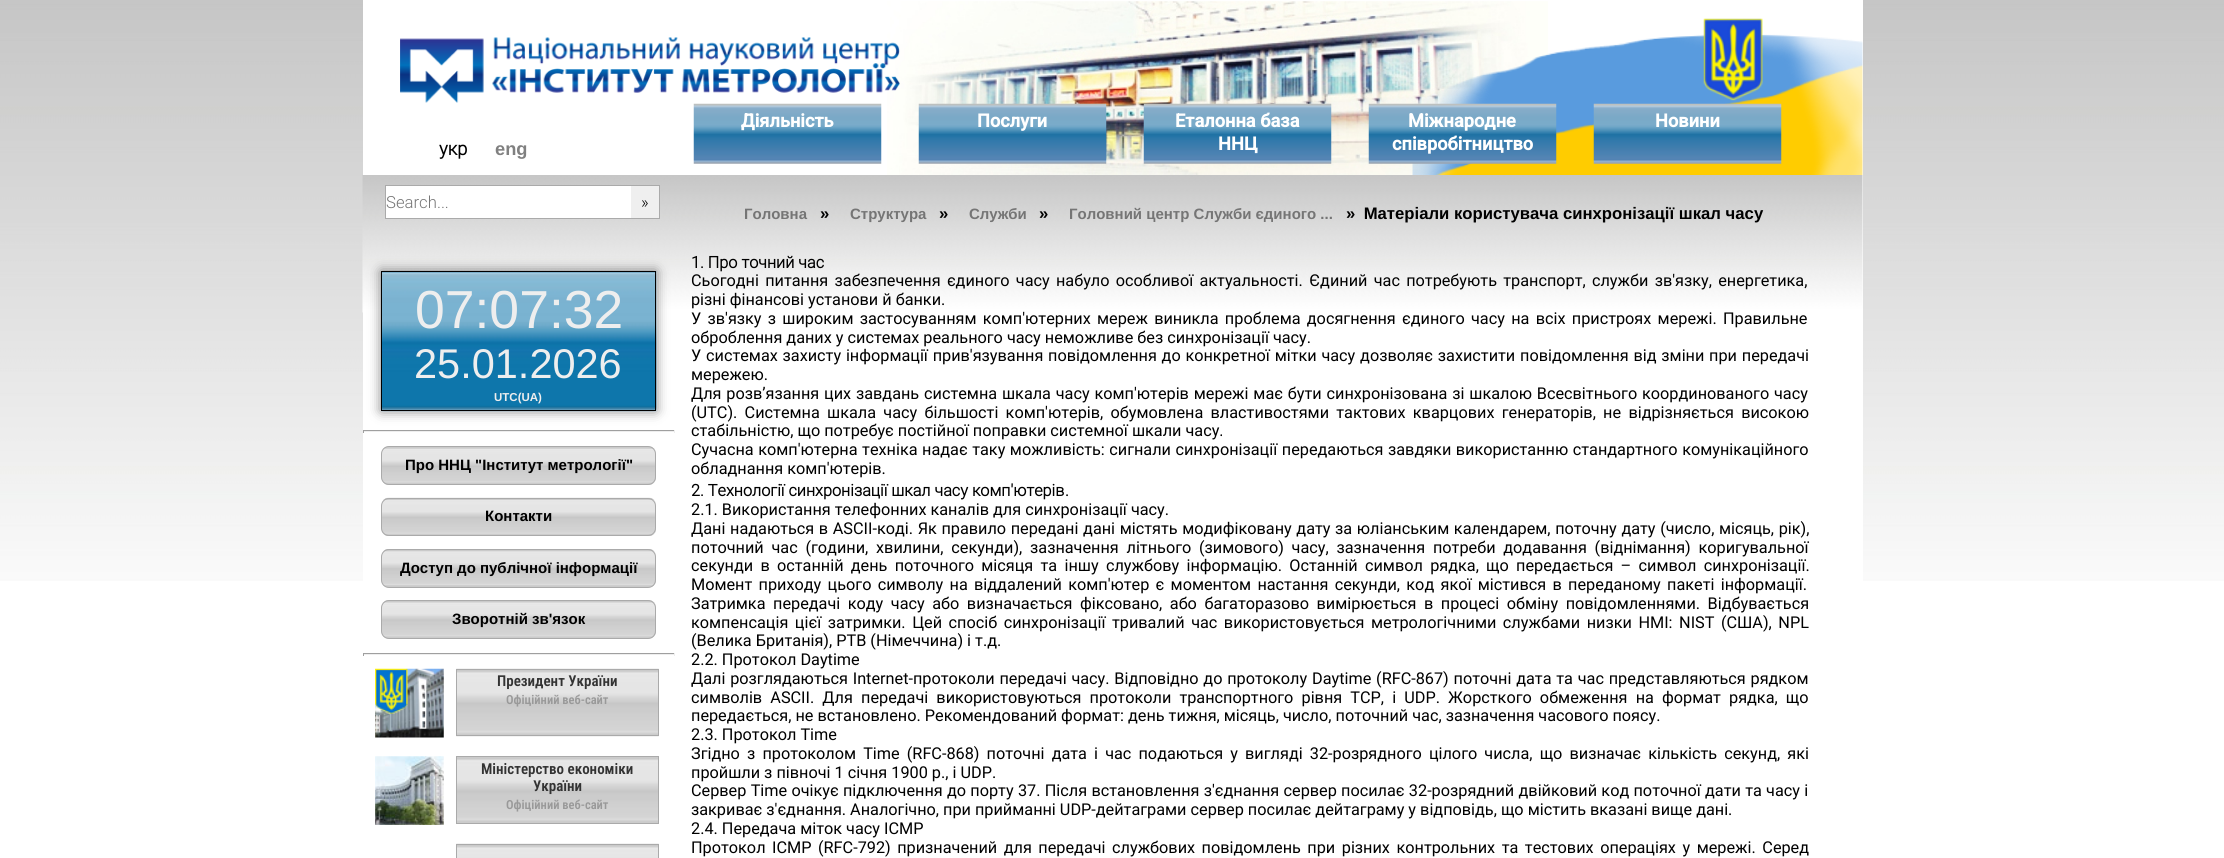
#include <cairo.h>
#include <math.h>
#include <stddef.h>


static void rgb(cairo_t *cr, int r, int g, int b)
{
	cairo_set_source_rgb(cr, r / 255.0, g / 255.0, b / 255.0);
}

static void face(cairo_t *cr, const char *family, double size, int italic, int bold)
{
	cairo_select_font_face(cr, family, italic ? CAIRO_FONT_SLANT_ITALIC : CAIRO_FONT_SLANT_NORMAL,
		bold ? CAIRO_FONT_WEIGHT_BOLD : CAIRO_FONT_WEIGHT_NORMAL);
	cairo_set_font_size(cr, size);
}

static void label(cairo_t *cr, double x, double y, const char *s)
{
	cairo_move_to(cr, x, y);
	cairo_show_text(cr, s);
}

static void tracked(cairo_t *cr, double x, double y, const char *s, double letter, double word)
{
	cairo_move_to(cr, x, y);
	while (*s) {
		char ch[5] = {0};
		int n = 0;
		do ch[n++] = *s++; while ((*s & 0xC0) == 0x80);
		cairo_show_text(cr, ch);
		cairo_rel_move_to(cr, letter + word * (*ch == ' '), 0);
	}
}

static void rect(cairo_t *cr, double x, double y, double w, double h)
{
	cairo_rectangle(cr, x, y, w, h);
	cairo_fill(cr);
}

static void rrect(cairo_t *cr, double x, double y, double w, double h, double r)
{
	cairo_new_sub_path(cr);
	cairo_arc(cr, x + w - r, y + h - r, r, 0, M_PI / 2);
	cairo_arc(cr, x + r, y + h - r, r, M_PI / 2, M_PI);
	cairo_arc(cr, x + r, y + r, r, M_PI, 1.5 * M_PI);
	cairo_arc(cr, x + w - r, y + r, r, 1.5 * M_PI, 2 * M_PI);
	cairo_close_path(cr);
}

static void soft_shadow(cairo_t *cr, double x, double y, double w, double h, double r, double blur, double alpha)
{
	cairo_push_group_with_content(cr, CAIRO_CONTENT_ALPHA);
	cairo_set_operator(cr, CAIRO_OPERATOR_SOURCE);
	for (int i = 15; i >= -15 && fmin(w, h) + blur * i / 3 > 0; i -= 2) {
		double e = blur * i / 6;
		cairo_set_source_rgba(cr, 0, 0, 0, alpha * erfc((i - 1) / 8.5) / 2);
		rrect(cr, x - e, y - e, w + 2 * e, h + 2 * e, fmax(0, fmin(r + e + blur * .6, fmin(w, h) / 2 + e)));
		cairo_fill(cr);
	}
	cairo_pattern_t *soft = cairo_pop_group(cr);
	cairo_mask(cr, soft);
	cairo_pattern_destroy(soft);
}

static void image(cairo_t *cr, const char *path, double x, double y, double w, double h)
{
	cairo_surface_t *image = cairo_image_surface_create_from_png(path);
	cairo_save(cr);
	cairo_set_source_surface(cr, image, x, y);
	cairo_rectangle(cr, x, y, w, h);
	cairo_fill(cr);
	cairo_restore(cr);
	cairo_surface_destroy(image);
}

static void draw(cairo_t *cr) {
	rgb(cr, 255, 255, 255);
	cairo_paint(cr);
	image(cr, "image0.png", 0, 0, 2224, 581);
	rgb(cr, 255, 255, 255);
	rect(cr, 363, 0, 1500, 581);
	image(cr, "image2.png", 887, 1, 661, 174);
	image(cr, "image1.png", 400, 37, 500, 66);
	image(cr, "image3.png", 1412, 18, 451, 157);
	face(cr, "Roboto", 18.25, 0, 1);
	rgb(cr, 0, 0, 0);
	label(cr, 439, 155, "укр");
	face(cr, "Liberation Sans", 18.25, 0, 1);
	rgb(cr, 128, 128, 128);
	label(cr, 495, 155, "eng");
	image(cr, "image4.png", 693, 103, 189, 61);
	face(cr, "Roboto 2", 18.25, 0, 1);
	rgb(cr, 255, 255, 255);
	label(cr, 741, 127, "Діяльність");
	image(cr, "image5.png", 918, 103, 189, 61);
	label(cr, 977, 127, "Послуги");
	image(cr, "image6.png", 1143, 103, 189, 61);
	label(cr, 1175, 127, "Еталонна база");
	label(cr, 1218, 150, "ННЦ");
	image(cr, "image7.png", 1368, 103, 189, 61);
	label(cr, 1408, 127, "Міжнародне");
	label(cr, 1392, 150, "співробітництво");
	image(cr, "image8.png", 1593, 103, 189, 61);
	label(cr, 1655, 127, "Новини");
	image(cr, "image9.png", 362, 175, 1501, 138);
	rect(cr, 386, 186, 245, 32);
	cairo_rectangle(cr, 385.5, 185.5, 274, 33);
	rgb(cr, 170, 170, 170);
	cairo_set_line_width(cr, 1);
	cairo_stroke(cr);
	face(cr, "Roboto Light", 16.7, 0, 0);
	rgb(cr, 117, 117, 117);
	label(cr, 386, 208, "Search...");
	rgb(cr, 239, 239, 239);
	rect(cr, 631, 186, 28, 32);
	rgb(cr, 0, 0, 0);
	label(cr, 641, 208, "»");
	face(cr, "Liberation Sans", 15, 0, 1);
	rgb(cr, 117, 117, 117);
	label(cr, 744, 219, "Головна");
	face(cr, "Liberation Sans", 16.7, 0, 1);
	rgb(cr, 0, 0, 0);
	label(cr, 820, 219, "»");
	face(cr, "Liberation Sans", 15, 0, 1);
	rgb(cr, 117, 117, 117);
	label(cr, 850, 219, "Структура");
	face(cr, "Liberation Sans", 16.7, 0, 1);
	rgb(cr, 0, 0, 0);
	label(cr, 939, 219, "»");
	face(cr, "Liberation Sans", 15, 0, 1);
	rgb(cr, 117, 117, 117);
	label(cr, 969, 219, "Служби");
	face(cr, "Liberation Sans", 16.7, 0, 1);
	rgb(cr, 0, 0, 0);
	label(cr, 1039, 219, "»");
	face(cr, "Liberation Sans", 15, 0, 1);
	rgb(cr, 117, 117, 117);
	label(cr, 1069, 219, "Головний центр Служби єдиного ...");
	face(cr, "Liberation Sans", 16.7, 0, 1);
	rgb(cr, 0, 0, 0);
	label(cr, 1346, 219, "» Матеріали користувача синхронізації шкал часу");
	rgb(cr, 0, 0, 0);
	soft_shadow(cr, 381, 271, 275, 140, 0, 6, 0.5);
	image(cr, "image10.png", 381, 271, 276, 141);
	cairo_rectangle(cr, 381.5, 271.5, 274, 139);
	rgb(cr, 0, 0, 0);
	cairo_stroke(cr);
	face(cr, "Liberation Sans", 53.5, 0, 0);
	rgb(cr, 238, 238, 238);
	label(cr, 415, 328, "07:07:32");
	face(cr, "Liberation Sans", 41.5, 0, 0);
	label(cr, 414, 378, "25.01.2026");
	face(cr, "Liberation Sans", 11.5, 0, 1);
	label(cr, 494, 401, "UTC(UA)");
	rgb(cr, 159, 159, 159);
	rect(cr, 363, 430, 312, 1);
	rgb(cr, 238, 238, 238);
	rect(cr, 674, 430, 1, 3);
	rect(cr, 363, 431, 312, 1);
	rgb(cr, 159, 159, 159);
	rect(cr, 363, 430, 1, 3);
	image(cr, "image11.png", 381, 446, 275, 39);
	rrect(cr, 381.5, 446.5, 274, 38, 7.5);
	rgb(cr, 170, 170, 170);
	cairo_stroke(cr);
	face(cr, "Liberation Sans", 15, 0, 1);
	rgb(cr, 0, 0, 0);
	label(cr, 405, 470, "Про ННЦ \"Інститут метрології\"");
	image(cr, "image12.png", 381, 497, 275, 39);
	rrect(cr, 381.5, 498.5, 274, 37, 7.5);
	rgb(cr, 170, 170, 170);
	cairo_stroke(cr);
	rgb(cr, 0, 0, 0);
	label(cr, 485, 521, "Контакти");
	image(cr, "image13.png", 381, 549, 275, 39);
	rrect(cr, 381.5, 549.5, 274, 38, 7.5);
	rgb(cr, 170, 170, 170);
	cairo_stroke(cr);
	rgb(cr, 0, 0, 0);
	label(cr, 400, 573, "Доступ до публічної інформації");
	image(cr, "image14.png", 381, 600, 275, 39);
	rrect(cr, 381.5, 600.5, 274, 38, 7.5);
	rgb(cr, 170, 170, 170);
	cairo_stroke(cr);
	rgb(cr, 0, 0, 0);
	label(cr, 452, 624, "Зворотній зв'язок");
	rgb(cr, 159, 159, 159);
	rect(cr, 363, 653, 312, 1);
	rgb(cr, 238, 238, 238);
	rect(cr, 674, 653, 1, 3);
	rect(cr, 363, 654, 312, 1);
	rgb(cr, 159, 159, 159);
	rect(cr, 363, 653, 1, 3);
	image(cr, "image15.png", 375, 668, 69, 70);
	image(cr, "image16.png", 456, 668, 203, 69);
	cairo_rectangle(cr, 456.5, 669.5, 202, 66);
	rgb(cr, 170, 170, 170);
	cairo_stroke(cr);
	face(cr, "Roboto Condensed SemiBold", 15, 0, 0);
	rgb(cr, 51, 51, 51);
	label(cr, 497, 686, "Президент України");
	face(cr, "Roboto Condensed SemiBold", 12.5, 0, 0);
	rgb(cr, 153, 153, 153);
	label(cr, 506, 704, "Офіційний веб-сайт");
	image(cr, "image17.png", 375, 756, 69, 69);
	image(cr, "image18.png", 457, 757, 201, 66);
	cairo_rectangle(cr, 456.5, 756.5, 202, 67);
	rgb(cr, 170, 170, 170);
	cairo_stroke(cr);
	face(cr, "Roboto Condensed SemiBold", 15, 0, 0);
	rgb(cr, 51, 51, 51);
	label(cr, 481, 774, "Міністерство економіки");
	label(cr, 533, 791, "України");
	face(cr, "Roboto Condensed SemiBold", 12.5, 0, 0);
	rgb(cr, 153, 153, 153);
	label(cr, 506, 809, "Офіційний веб-сайт");
	image(cr, "image19.png", 456, 843, 203, 15);
	cairo_rectangle(cr, 456.5, 844.5, 202, 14);
	rgb(cr, 170, 170, 170);
	cairo_stroke(cr);
	face(cr, "Roboto", 16.25, 0, 1);
	rgb(cr, 0, 0, 0);
	label(cr, 691, 268, "1. Про точний час");
	face(cr, "Roboto", 16.25, 0, 0);
	tracked(cr, 691, 286, "Сьогодні питання забезпечення єдиного часу набуло особливої актуальності. Єдиний час потребують транспорт, служби зв'язку, енергетика,", 0, 2.25);
	label(cr, 691, 305, "різні фінансові установи й банки.");
	tracked(cr, 691, 324, "У зв'язку з широким застосуванням комп'ютерних мереж виникла проблема досягнення єдиного часу на всіх пристроях мережі. Правильне", 0, 2.25);
	label(cr, 691, 343, "оброблення даних у системах реального часу неможливе без синхронізації часу.");
	tracked(cr, 691, 361, "У системах захисту інформації прив'язування повідомлення до конкретної мітки часу дозволяє захистити повідомлення від зміни при передачі", 0, 0.75);
	label(cr, 691, 380, "мережею.");
	tracked(cr, 691, 399, "Для розв’язання цих завдань системна шкала часу комп'ютерів мережі має бути синхронізована зі шкалою Всесвітнього координованого часу", 0, 0.8);
	tracked(cr, 691, 418, "(UTC). Системна шкала часу більшості комп'ютерів, обумовлена властивостями тактових кварцових генераторів, не відрізняється високою", 0, 3.25);
	label(cr, 691, 436, "стабільністю, що потребує постійної поправки системної шкали часу.");
	tracked(cr, 691, 455, "Сучасна комп'ютерна техніка надає таку можливість: сигнали синхронізації передаються завдяки використанню стандартного комунікаційного", 0, 0.5);
	label(cr, 691, 474, "обладнання комп'ютерів.");
	face(cr, "Roboto", 16.25, 0, 1);
	label(cr, 691, 496, "2. Технології синхронізації шкал часу комп'ютерів");
	face(cr, "Roboto", 16.25, 0, 0);
	label(cr, 1065, 496, ".");
	label(cr, 691, 515, "2.1. Використання телефонних каналів для синхронізації часу.");
	tracked(cr, 691, 534, "Дані надаються в ASCII-коді. Як правило передані дані містять модифіковану дату за юліанським календарем, поточну дату (число, місяць, рік),", 0, 0.6);
	tracked(cr, 691, 553, "поточний час (години, хвилини, секунди), зазначення літнього (зимового) часу, зазначення потреби додавання (віднімання) коригувальної", 0, 3.75);
	tracked(cr, 691, 571, "секунди в останній день поточного місяця та іншу службову інформацію. Останній символ рядка, що передається – символ синхронізації.", 0, 3.25);
	tracked(cr, 691, 590, "Момент приходу цього символу на віддалений комп'ютер є моментом настання секунди, код якої містився в переданому пакеті інформації.", 0, 2.25);
	tracked(cr, 691, 609, "Затримка передачі коду часу або визначається фіксовано, або багаторазово вимірюється в процесі обміну повідомленнями. Відбувається", 0, 3.5);
	tracked(cr, 691, 628, "компенсація цієї затримки. Цей спосіб синхронізації тривалий час використовується метрологічними службами низки НМІ: NIST (США), NPL", 0, 2.5);
	label(cr, 691, 646, "(Велика Британія), PTB (Німеччина) і т.д.");
	label(cr, 691, 665, "2.2. Протокол Daytime");
	tracked(cr, 691, 684, "Далі розглядаються Internet-протоколи передачі часу. Відповідно до протоколу Daytime (RFC-867) поточні дата та час представляються рядком", 0, 0.75);
	tracked(cr, 691, 703, "символів ASCII. Для передачі використовуються протоколи транспортного рівня TCP, і UDP. Жорсткого обмеження на формат рядка, що", 0, 4.1);
	label(cr, 691, 721, "передається, не встановлено. Рекомендований формат: день тижня, місяць, число, поточний час, зазначення часового поясу.");
	label(cr, 691, 740, "2.3. Протокол Time");
	tracked(cr, 691, 759, "Згідно з протоколом Time (RFC-868) поточні дата і час подаються у вигляді 32-розрядного цілого числа, що визначає кількість секунд, які", 0, 3.1);
	label(cr, 691, 778, "пройшли з півночі 1 січня 1900 р., і UDP.");
	tracked(cr, 691, 796, "Сервер Time очікує підключення до порту 37. Після встановлення з'єднання сервер посилає 32-розрядний двійковий код поточної дати та часу і", 0, 0.25);
	label(cr, 691, 815, "закриває з'єднання. Аналогічно, при прийманні UDP-дейтаграми сервер посилає дейтаграму у відповідь, що містить вказані вище дані.");
	label(cr, 691, 834, "2.4. Передача міток часу ICMP");
	tracked(cr, 691, 853, "Протокол ICMP (RFC-792) призначений для передачі службових повідомлень при різних контрольних та тестових операціях у мережі. Серед", 0, 2.5);
}

int main(void) {
	cairo_surface_t *surface = cairo_image_surface_create(CAIRO_FORMAT_RGB24, 2224, 858);
	cairo_t *cr = cairo_create(surface);
	cairo_font_options_t *options = cairo_font_options_create();
	cairo_font_options_set_hint_metrics(options, CAIRO_HINT_METRICS_OFF);
	cairo_font_options_set_hint_style(options, CAIRO_HINT_STYLE_NONE);
	cairo_set_font_options(cr, options);
	cairo_set_miter_limit(cr, 4);
	draw(cr);
	cairo_surface_write_to_png(surface, "render.png");
	cairo_font_options_destroy(options);
	cairo_destroy(cr);
	cairo_surface_destroy(surface);
	return 0;
}
